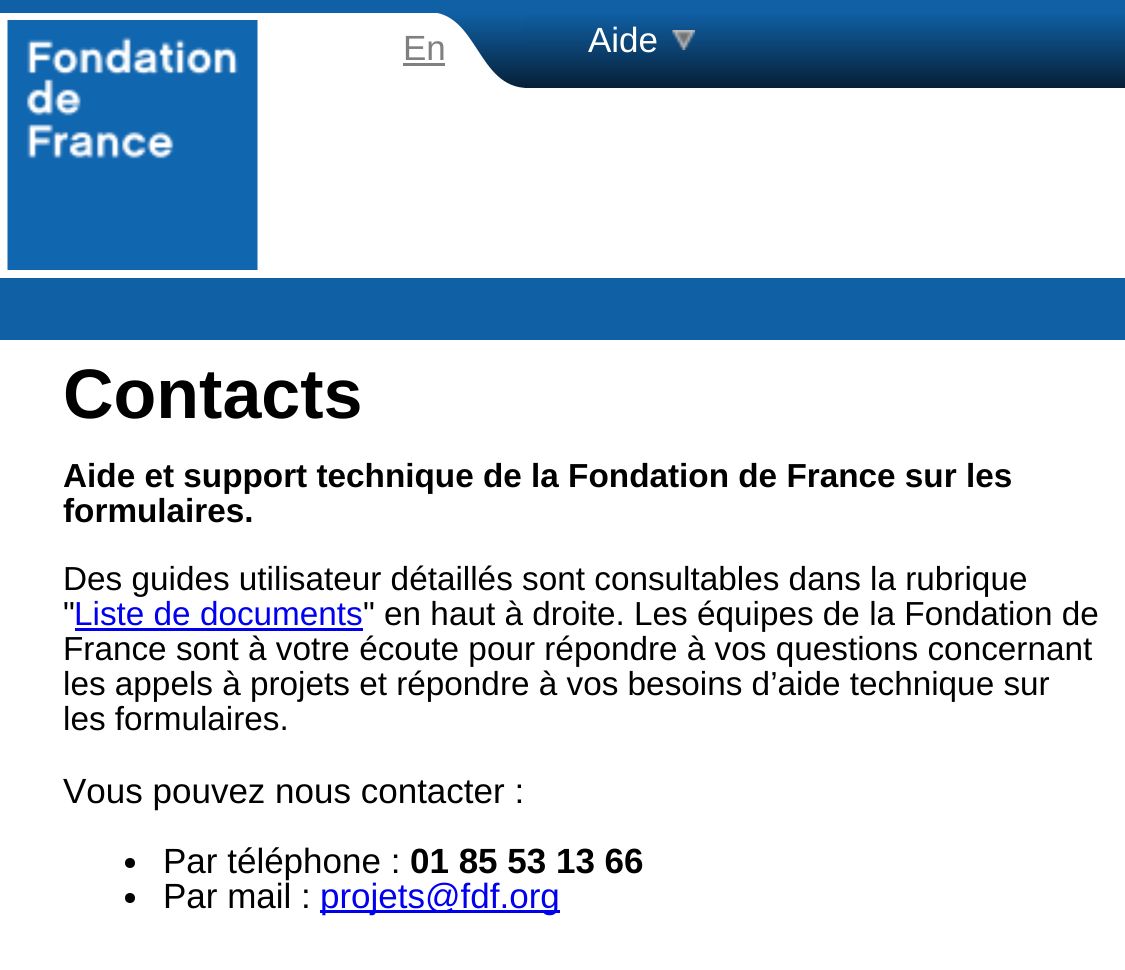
#include <cairo.h>
#include <math.h>
#include <stddef.h>


static void rgb(cairo_t *cr, int r, int g, int b)
{
	cairo_set_source_rgb(cr, r / 255.0, g / 255.0, b / 255.0);
}

static void face(cairo_t *cr, const char *family, double size, int italic, int bold)
{
	cairo_select_font_face(cr, family, italic ? CAIRO_FONT_SLANT_ITALIC : CAIRO_FONT_SLANT_NORMAL,
		bold ? CAIRO_FONT_WEIGHT_BOLD : CAIRO_FONT_WEIGHT_NORMAL);
	cairo_set_font_size(cr, size);
}

static void label(cairo_t *cr, double x, double y, const char *s)
{
	cairo_move_to(cr, x, y);
	cairo_show_text(cr, s);
}

static void rect(cairo_t *cr, double x, double y, double w, double h)
{
	cairo_rectangle(cr, x, y, w, h);
	cairo_fill(cr);
}

static void image(cairo_t *cr, const char *path, double x, double y, double w, double h)
{
	cairo_surface_t *image = cairo_image_surface_create_from_png(path);
	cairo_save(cr);
	cairo_set_source_surface(cr, image, x, y);
	cairo_rectangle(cr, x, y, w, h);
	cairo_fill(cr);
	cairo_restore(cr);
	cairo_surface_destroy(image);
}

static void draw(cairo_t *cr) {
	cairo_pattern_t *gradient;
	rgb(cr, 255, 255, 255);
	cairo_paint(cr);
	rgb(cr, 16, 96, 165);
	rect(cr, 0, 0, 1125, 13);
	image(cr, "image0.png", 7, 20, 251, 250);
	gradient = cairo_pattern_create_linear(428, 13, 428, 88);
	cairo_pattern_add_color_stop_rgba(gradient, 0, 0.063, 0.376, 0.647, 1);
	cairo_pattern_add_color_stop_rgba(gradient, 1, 0.024, 0.125, 0.216, 1);
	cairo_set_source(cr, gradient);
	cairo_pattern_destroy(gradient);
	cairo_new_path(cr);
	cairo_move_to(cr, 428, 12);
	cairo_curve_to(cr, 478, 12, 477, 88, 528, 88);
	cairo_line_to(cr, 528, 12);
	cairo_close_path(cr);
	cairo_fill(cr);
	face(cr, "Liberation Sans", 35, 0, 0);
	rgb(cr, 128, 128, 128);
	label(cr, 403, 60, "En");
	rect(cr, 403, 63, 42, 3);
	gradient = cairo_pattern_create_linear(825, 12, 825, 88);
	cairo_pattern_add_color_stop_rgba(gradient, 0, 0.063, 0.376, 0.647, 1);
	cairo_pattern_add_color_stop_rgba(gradient, 1, 0.024, 0.125, 0.216, 1);
	cairo_set_source(cr, gradient);
	cairo_pattern_destroy(gradient);
	rect(cr, 525, 13, 600, 75);
	image(cr, "image1.png", 672, 30, 23, 20);
	rgb(cr, 255, 255, 255);
	label(cr, 588, 52, "Aide");
	rgb(cr, 16, 96, 165);
	rect(cr, 0, 278, 1125, 62);
	face(cr, "Liberation Sans", 70, 0, 1);
	rgb(cr, 0, 0, 0);
	label(cr, 63, 418, "Contacts");
	face(cr, "Liberation Sans", 33.3, 0, 1);
	label(cr, 63, 487, "Aide et support technique de la Fondation de France sur les");
	label(cr, 63, 522, "formulaires.");
	face(cr, "Liberation Sans", 33.3, 0, 0);
	label(cr, 63, 590, "Des guides utilisateur détaillés sont consultables dans la rubrique");
	label(cr, 63, 625, "\"");
	rgb(cr, 0, 0, 238);
	label(cr, 74, 625, "Liste de documents");
	rect(cr, 75, 628, 288, 3);
	rgb(cr, 0, 0, 0);
	label(cr, 363, 625, "\" en haut à droite. Les équipes de la Fondation de");
	label(cr, 63, 660, "France sont à votre écoute pour répondre à vos questions concernant");
	label(cr, 63, 695, "les appels à projets et répondre à vos besoins d’aide technique sur");
	label(cr, 63, 730, "les formulaires.");
	face(cr, "Liberation Sans", 35, 0, 0);
	label(cr, 63, 803, "Vous pouvez nous contacter :");
	cairo_new_path(cr);
	cairo_arc(cr, 130, 863, 5, 0, 2 * M_PI);
	cairo_fill(cr);
	label(cr, 163, 873, "Par téléphone :");
	face(cr, "Liberation Sans", 35, 0, 1);
	label(cr, 410, 873, "01 85 53 13 66");
	cairo_new_path(cr);
	cairo_arc(cr, 130, 898, 5, 0, 2 * M_PI);
	cairo_fill(cr);
	face(cr, "Liberation Sans", 35, 0, 0);
	label(cr, 163, 908, "Par mail :");
	rgb(cr, 0, 0, 238);
	rect(cr, 320, 910, 240, 3);
	label(cr, 320, 908, "projets@fdf.org");
}

int main(void) {
	cairo_surface_t *surface = cairo_image_surface_create(CAIRO_FORMAT_RGB24, 1125, 970);
	cairo_t *cr = cairo_create(surface);
	cairo_font_options_t *options = cairo_font_options_create();
	cairo_font_options_set_hint_metrics(options, CAIRO_HINT_METRICS_OFF);
	cairo_font_options_set_hint_style(options, CAIRO_HINT_STYLE_NONE);
	cairo_set_font_options(cr, options);
	cairo_set_miter_limit(cr, 4);
	draw(cr);
	cairo_surface_write_to_png(surface, "render.png");
	cairo_font_options_destroy(options);
	cairo_destroy(cr);
	cairo_surface_destroy(surface);
	return 0;
}
